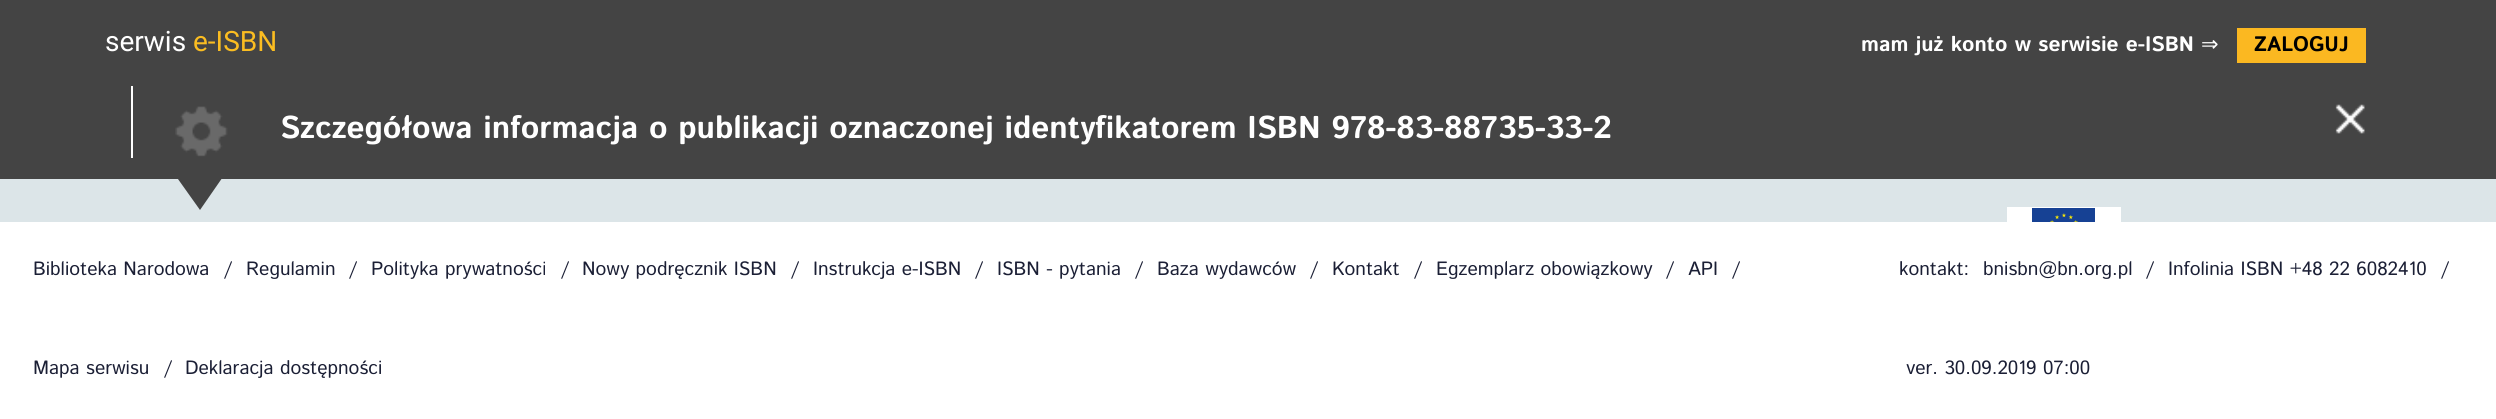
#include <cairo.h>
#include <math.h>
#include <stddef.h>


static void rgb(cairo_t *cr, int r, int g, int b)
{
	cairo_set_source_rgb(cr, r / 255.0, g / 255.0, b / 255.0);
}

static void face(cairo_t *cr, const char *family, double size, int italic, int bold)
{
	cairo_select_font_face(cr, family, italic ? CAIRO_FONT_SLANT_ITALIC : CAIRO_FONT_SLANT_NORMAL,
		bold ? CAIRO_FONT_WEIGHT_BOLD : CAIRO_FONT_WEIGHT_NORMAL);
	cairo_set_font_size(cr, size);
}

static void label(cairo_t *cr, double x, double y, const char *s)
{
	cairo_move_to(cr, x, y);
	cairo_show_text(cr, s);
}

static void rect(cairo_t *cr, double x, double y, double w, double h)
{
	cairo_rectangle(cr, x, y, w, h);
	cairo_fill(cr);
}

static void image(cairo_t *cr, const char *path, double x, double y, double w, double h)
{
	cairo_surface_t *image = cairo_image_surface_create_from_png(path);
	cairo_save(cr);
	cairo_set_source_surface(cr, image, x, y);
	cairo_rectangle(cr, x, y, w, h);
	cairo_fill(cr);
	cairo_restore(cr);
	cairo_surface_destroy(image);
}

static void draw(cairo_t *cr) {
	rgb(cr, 220, 229, 232);
	cairo_paint(cr);
	rgb(cr, 68, 68, 68);
	rect(cr, 0, 0, 2496, 179);
	face(cr, "Roboto", 28, 0, 0);
	rgb(cr, 255, 255, 255);
	label(cr, 105, 51, "serwis");
	rgb(cr, 251, 189, 33);
	label(cr, 193, 51, "e-ISBN");
	face(cr, "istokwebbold", 21, 0, 1);
	rgb(cr, 255, 255, 255);
	label(cr, 1861, 51, "mam już konto w serwisie e-ISBN");
	face(cr, "DejaVu Sans", 21, 0, 0);
	label(cr, 2201, 51, "⇒");
	rgb(cr, 251, 184, 33);
	rect(cr, 2237, 28, 129, 35);
	face(cr, "istokwebbold", 21, 0, 1);
	rgb(cr, 0, 0, 0);
	label(cr, 2254, 51, "ZALOGUJ");
	rgb(cr, 255, 255, 255);
	rect(cr, 131, 86, 2, 72);
	image(cr, "image0.png", 175, 106, 53, 51);
	face(cr, "istokwebbold", 31.5, 0, 1);
	label(cr, 280, 138, "Szczegółowa informacja o publikacji oznaczonej identyfikatorem ISBN 978-83-88735-33-2");
	image(cr, "image1.png", 2335, 104, 30, 30);
	rgb(cr, 68, 68, 68);
	cairo_new_path(cr);
	cairo_move_to(cr, 163, 158);
	cairo_line_to(cr, 236, 158);
	cairo_line_to(cr, 200, 210);
	cairo_close_path(cr);
	cairo_fill(cr);
	image(cr, "image2.png", 2007, 207, 114, 15);
	rgb(cr, 255, 255, 255);
	rect(cr, 0, 222, 2496, 197);
	face(cr, "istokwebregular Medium", 19.25, 0, 0);
	rgb(cr, 27, 31, 53);
	label(cr, 33, 275, "Biblioteka Narodowa");
	label(cr, 224, 275, "/");
	label(cr, 246, 275, "Regulamin");
	label(cr, 349, 275, "/");
	label(cr, 371, 275, "Polityka prywatności");
	label(cr, 561, 275, "/");
	label(cr, 582, 275, "Nowy podręcznik ISBN");
	label(cr, 791, 275, "/");
	label(cr, 813, 275, "Instrukcja e-ISBN");
	label(cr, 975, 275, "/");
	label(cr, 997, 275, "ISBN - pytania");
	label(cr, 1135, 275, "/");
	label(cr, 1157, 275, "Baza wydawców");
	label(cr, 1310, 275, "/");
	label(cr, 1332, 275, "Kontakt");
	label(cr, 1414, 275, "/");
	label(cr, 1436, 275, "Egzemplarz obowiązkowy");
	label(cr, 1666, 275, "/");
	label(cr, 1688, 275, "API");
	label(cr, 1732, 275, "/");
	label(cr, 33, 374, "Mapa serwisu");
	label(cr, 164, 374, "/");
	label(cr, 185, 374, "Deklaracja dostępności");
	label(cr, 1899, 275, "kontakt:");
	label(cr, 1983, 275, "bnisbn@bn.org.pl");
	label(cr, 2146, 275, "/");
	label(cr, 2168, 275, "Infolinia ISBN +48 22 6082410");
	label(cr, 2441, 275, "/");
	label(cr, 1906, 374, "ver. 30.09.2019 07:00");
}

int main(void) {
	cairo_surface_t *surface = cairo_image_surface_create(CAIRO_FORMAT_RGB24, 2496, 419);
	cairo_t *cr = cairo_create(surface);
	cairo_font_options_t *options = cairo_font_options_create();
	cairo_font_options_set_hint_metrics(options, CAIRO_HINT_METRICS_OFF);
	cairo_font_options_set_hint_style(options, CAIRO_HINT_STYLE_NONE);
	cairo_set_font_options(cr, options);
	cairo_set_miter_limit(cr, 4);
	draw(cr);
	cairo_surface_write_to_png(surface, "render.png");
	cairo_font_options_destroy(options);
	cairo_destroy(cr);
	cairo_surface_destroy(surface);
	return 0;
}
